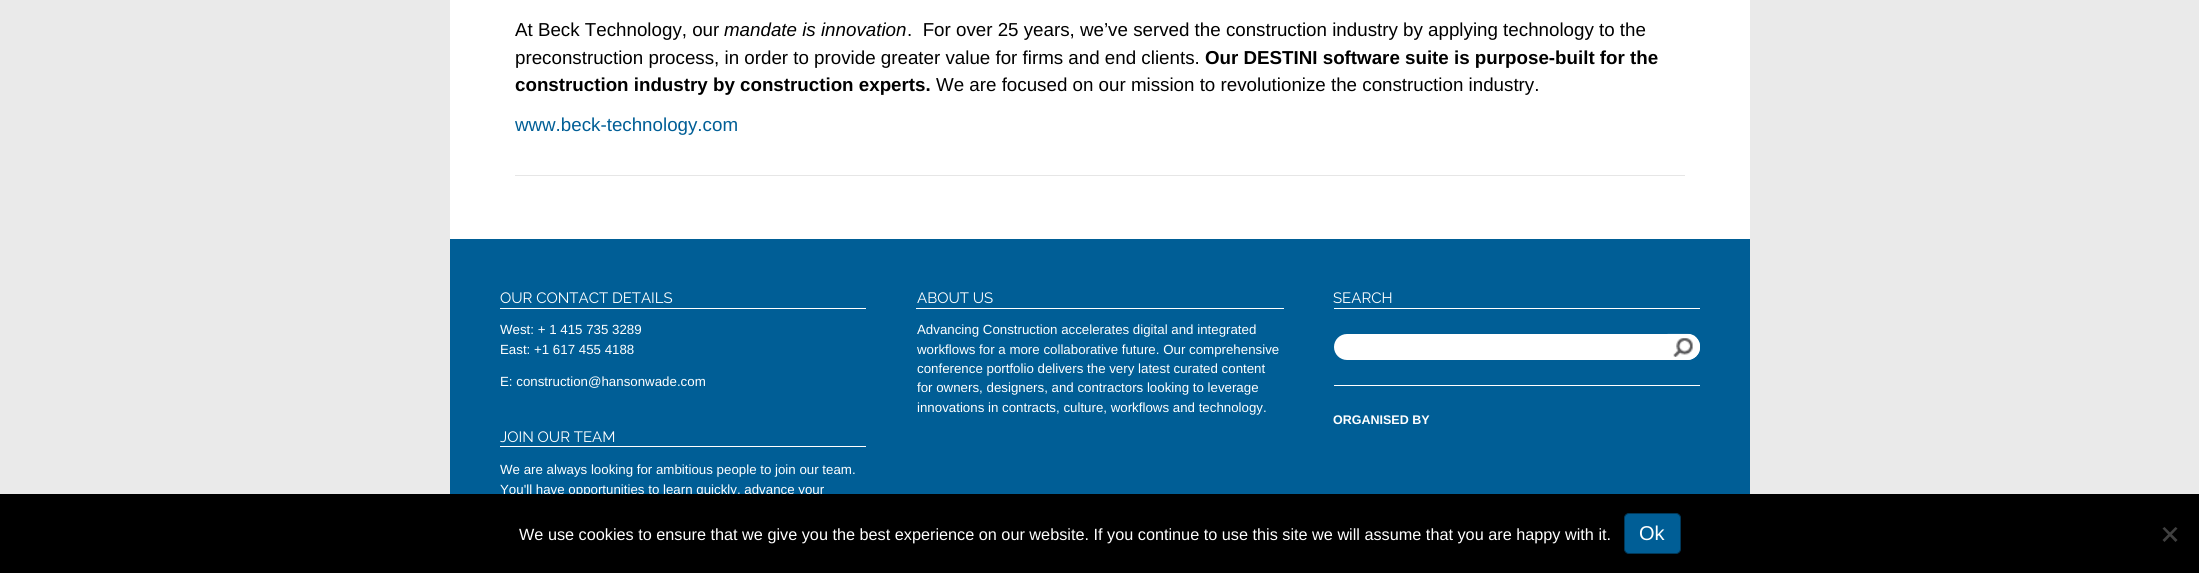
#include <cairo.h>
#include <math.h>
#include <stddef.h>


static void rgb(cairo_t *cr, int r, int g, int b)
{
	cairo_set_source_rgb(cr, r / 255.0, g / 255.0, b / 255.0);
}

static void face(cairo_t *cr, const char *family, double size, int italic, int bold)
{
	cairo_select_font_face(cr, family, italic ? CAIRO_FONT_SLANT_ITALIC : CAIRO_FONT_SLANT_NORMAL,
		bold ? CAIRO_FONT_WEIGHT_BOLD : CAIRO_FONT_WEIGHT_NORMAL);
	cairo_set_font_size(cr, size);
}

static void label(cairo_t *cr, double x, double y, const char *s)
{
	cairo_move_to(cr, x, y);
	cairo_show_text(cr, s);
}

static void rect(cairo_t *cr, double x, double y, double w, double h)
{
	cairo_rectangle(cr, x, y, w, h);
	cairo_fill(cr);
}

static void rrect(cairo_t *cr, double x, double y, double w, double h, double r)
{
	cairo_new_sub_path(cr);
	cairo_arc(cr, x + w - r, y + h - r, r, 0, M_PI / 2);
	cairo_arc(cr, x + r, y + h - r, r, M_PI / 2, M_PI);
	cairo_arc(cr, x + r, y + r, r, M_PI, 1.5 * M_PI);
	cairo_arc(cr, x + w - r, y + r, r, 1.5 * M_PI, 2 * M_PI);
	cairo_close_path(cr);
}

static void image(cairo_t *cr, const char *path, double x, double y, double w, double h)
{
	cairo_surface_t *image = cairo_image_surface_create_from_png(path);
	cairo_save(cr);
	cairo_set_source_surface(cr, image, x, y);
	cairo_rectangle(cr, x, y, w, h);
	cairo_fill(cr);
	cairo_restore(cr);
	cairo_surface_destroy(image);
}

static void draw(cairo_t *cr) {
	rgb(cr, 234, 234, 234);
	cairo_paint(cr);
	rgb(cr, 255, 255, 255);
	rect(cr, 450, 0, 1300, 239);
	face(cr, "Liberation Sans", 18.75, 0, 0);
	rgb(cr, 0, 0, 0);
	label(cr, 515, 36, "At Beck Technology, our");
	face(cr, "Liberation Sans", 18.75, 1, 0);
	label(cr, 724, 36, "mandate is innovation");
	face(cr, "Liberation Sans", 18.75, 0, 0);
	label(cr, 907, 36, ".  For over 25 years, we’ve served the construction industry by applying technology to the");
	label(cr, 515, 64, "preconstruction process, in order to provide greater value for firms and end clients.");
	face(cr, "Liberation Sans", 18.75, 0, 1);
	label(cr, 1205, 64, "Our DESTINI software suite is purpose-built for the");
	label(cr, 515, 91, "construction industry by construction experts.");
	face(cr, "Liberation Sans", 18.75, 0, 0);
	label(cr, 936, 91, "We are focused on our mission to revolutionize the construction industry.");
	rgb(cr, 0, 94, 150);
	label(cr, 515, 131, "www.beck-technology.com");
	rgb(cr, 230, 230, 230);
	rect(cr, 515, 175, 1170, 1);
	rgb(cr, 0, 94, 150);
	rect(cr, 450, 239, 1300, 255);
	rgb(cr, 255, 255, 255);
	rect(cr, 500, 308, 366, 1);
	face(cr, "Raleway", 15, 0, 0);
	label(cr, 500, 303, "OUR CONTACT DETAILS");
	face(cr, "Liberation Sans", 13.3, 0, 0);
	label(cr, 500, 334, "West: + 1 415 735 3289");
	label(cr, 500, 354, "East: +1 617 455 4188");
	label(cr, 500, 386, "E: construction@hansonwade.com");
	rect(cr, 500, 446, 366, 1);
	face(cr, "Raleway", 15, 0, 0);
	label(cr, 500, 442, "JOIN OUR TEAM");
	face(cr, "Liberation Sans", 13.3, 0, 0);
	label(cr, 500, 474, "We are always looking for ambitious people to join our team.");
	label(cr, 500, 494, "You'll have opportunities to learn quickly, advance your");
	rect(cr, 916, 308, 368, 1);
	face(cr, "Raleway", 15, 0, 0);
	label(cr, 917, 303, "ABOUT US");
	face(cr, "Liberation Sans", 13.3, 0, 0);
	label(cr, 917, 334, "Advancing Construction accelerates digital and integrated");
	label(cr, 917, 354, "workflows for a more collaborative future. Our comprehensive");
	label(cr, 917, 373, "conference portfolio delivers the very latest curated content");
	label(cr, 917, 392, "for owners, designers, and contractors looking to leverage");
	label(cr, 917, 412, "innovations in contracts, culture, workflows and technology.");
	rect(cr, 1334, 308, 366, 1);
	face(cr, "Raleway", 15, 0, 0);
	label(cr, 1333, 303, "SEARCH");
	rrect(cr, 1334, 334, 366, 26, 13);
	cairo_fill(cr);
	image(cr, "image0.png", 1667, 333, 33, 27);
	rect(cr, 1334, 385, 366, 1);
	face(cr, "Liberation Sans", 12.5, 0, 1);
	label(cr, 1333, 424, "ORGANISED BY");
	rgb(cr, 0, 0, 0);
	rect(cr, 0, 494, 2199, 79);
	face(cr, "Liberation Sans", 16.25, 0, 0);
	rgb(cr, 255, 255, 255);
	label(cr, 519, 540, "We use cookies to ensure that we give you the best experience on our website. If you continue to use this site we will assume that you are happy with it.");
	rgb(cr, 0, 94, 150);
	rrect(cr, 1624.5, 513.5, 56, 40, 4.5);
	cairo_fill_preserve(cr);
	rgb(cr, 0, 56, 89);
	cairo_set_line_width(cr, 1);
	cairo_stroke(cr);
	face(cr, "Liberation Sans", 20, 0, 0);
	rgb(cr, 255, 255, 255);
	label(cr, 1639, 540, "Ok");
	rgb(cr, 64, 64, 64);
	cairo_new_path(cr);
	cairo_move_to(cr, 2175.5, 527);
	cairo_line_to(cr, 2177.5, 528.5);
	cairo_line_to(cr, 2164.5, 542);
	cairo_line_to(cr, 2162.5, 540);
	cairo_close_path(cr);
	cairo_fill(cr);
	cairo_new_path(cr);
	cairo_move_to(cr, 2162.5, 528.5);
	cairo_line_to(cr, 2164.5, 527);
	cairo_line_to(cr, 2177.5, 540);
	cairo_line_to(cr, 2175.5, 542);
	cairo_close_path(cr);
	cairo_fill(cr);
}

int main(void) {
	cairo_surface_t *surface = cairo_image_surface_create(CAIRO_FORMAT_RGB24, 2199, 573);
	cairo_t *cr = cairo_create(surface);
	cairo_font_options_t *options = cairo_font_options_create();
	cairo_font_options_set_hint_metrics(options, CAIRO_HINT_METRICS_OFF);
	cairo_font_options_set_hint_style(options, CAIRO_HINT_STYLE_NONE);
	cairo_set_font_options(cr, options);
	cairo_set_miter_limit(cr, 4);
	draw(cr);
	cairo_surface_write_to_png(surface, "render.png");
	cairo_font_options_destroy(options);
	cairo_destroy(cr);
	cairo_surface_destroy(surface);
	return 0;
}
